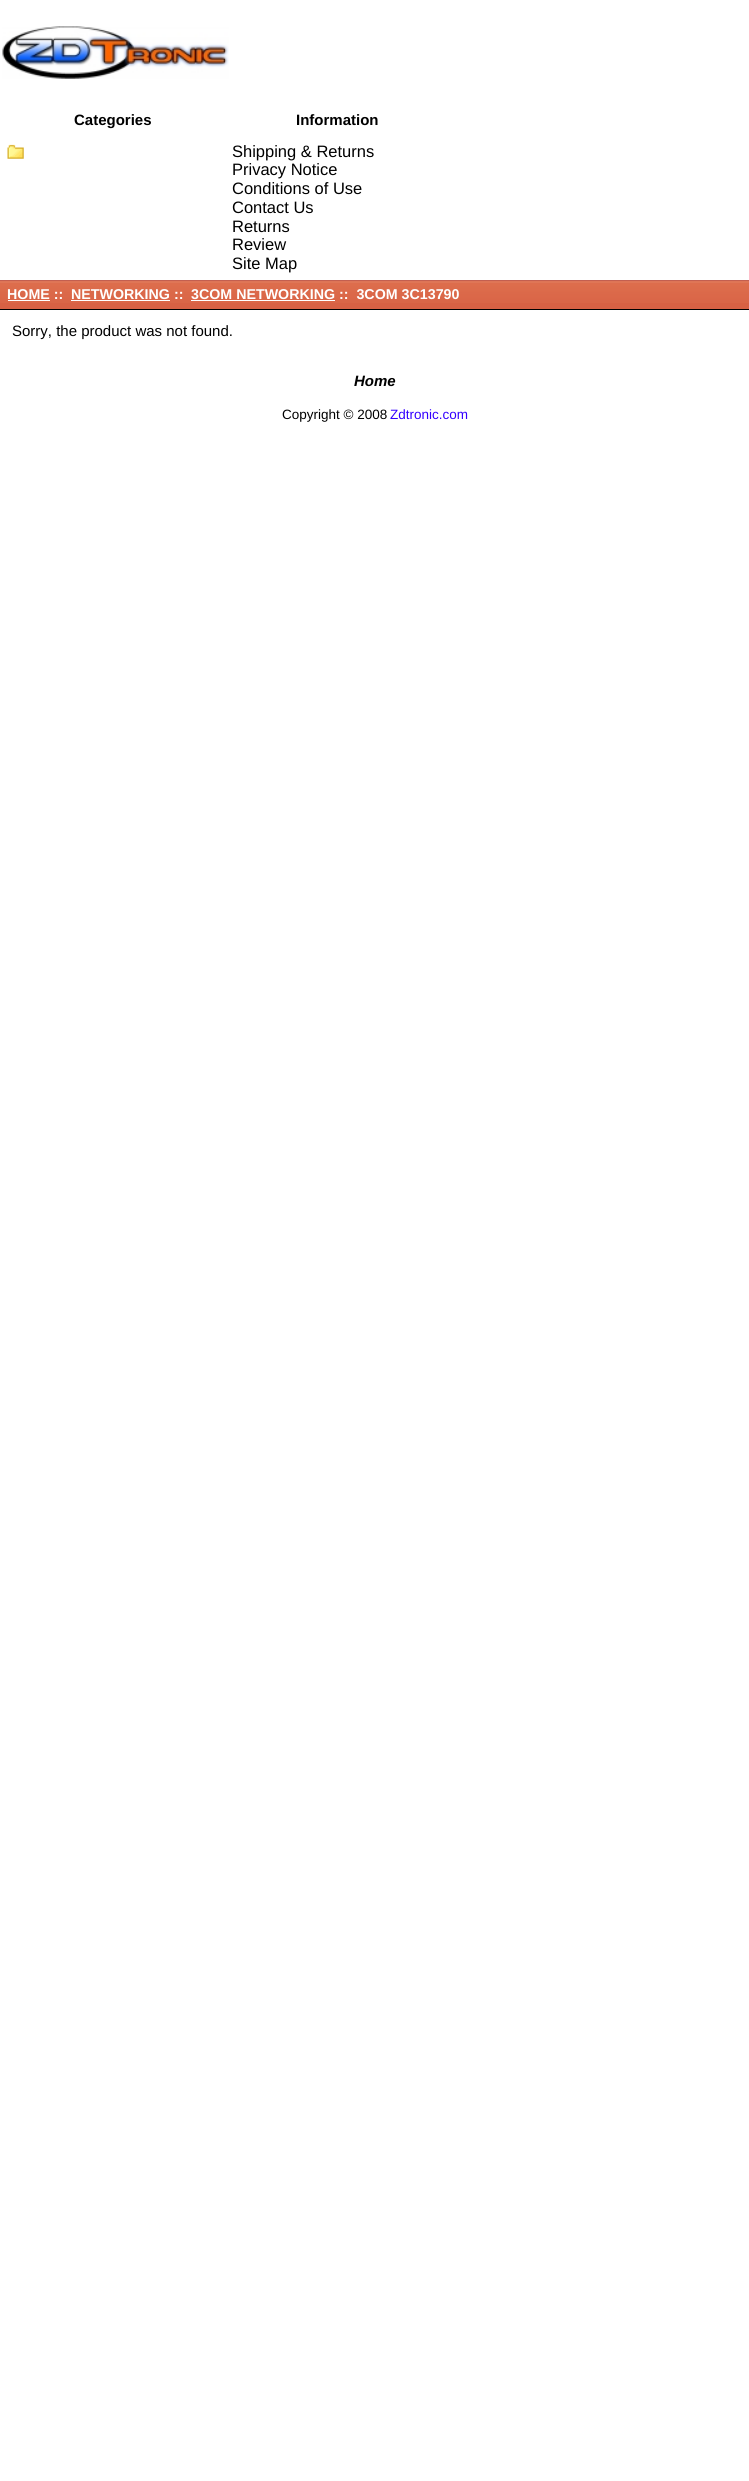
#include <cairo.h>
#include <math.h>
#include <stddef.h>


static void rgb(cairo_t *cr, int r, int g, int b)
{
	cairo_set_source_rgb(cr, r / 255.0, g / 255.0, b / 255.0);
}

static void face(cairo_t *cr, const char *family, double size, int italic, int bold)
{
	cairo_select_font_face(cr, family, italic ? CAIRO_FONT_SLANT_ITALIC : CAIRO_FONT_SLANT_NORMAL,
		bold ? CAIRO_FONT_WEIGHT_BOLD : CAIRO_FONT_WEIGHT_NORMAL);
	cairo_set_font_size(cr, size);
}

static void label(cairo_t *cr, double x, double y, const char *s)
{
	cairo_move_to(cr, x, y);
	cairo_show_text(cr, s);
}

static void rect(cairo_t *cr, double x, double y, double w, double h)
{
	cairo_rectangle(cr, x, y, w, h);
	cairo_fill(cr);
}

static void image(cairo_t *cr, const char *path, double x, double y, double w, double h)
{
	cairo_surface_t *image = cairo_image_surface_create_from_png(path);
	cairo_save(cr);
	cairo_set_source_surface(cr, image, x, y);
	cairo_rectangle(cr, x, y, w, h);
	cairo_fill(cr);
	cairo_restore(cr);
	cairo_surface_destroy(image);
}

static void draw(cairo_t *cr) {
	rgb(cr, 255, 255, 255);
	cairo_paint(cr);
	image(cr, "image0.png", 2, 26, 227, 53);
	face(cr, "Liberation Sans", 15, 0, 1);
	rgb(cr, 0, 0, 0);
	label(cr, 74, 125, "Categories");
	image(cr, "image1.png", 7, 144, 17, 15);
	label(cr, 296, 125, "Information");
	face(cr, "Liberation Sans", 16.5, 0, 0);
	label(cr, 232, 157, "Shipping & Returns");
	label(cr, 232, 175, "Privacy Notice");
	label(cr, 232, 194, "Conditions of Use");
	label(cr, 232, 213, "Contact Us");
	label(cr, 232, 232, "Returns");
	label(cr, 232, 250, "Review");
	label(cr, 232, 269, "Site Map");
	rgb(cr, 216, 97, 68);
	rect(cr, 0, 303, 749, 6);
	image(cr, "image2.png", 0, 280, 749, 23);
	rgb(cr, 0, 0, 0);
	rect(cr, 0, 309, 749, 1);
	face(cr, "Liberation Sans", 14.25, 0, 1);
	rgb(cr, 255, 255, 255);
	label(cr, 7, 299, "HOME ::");
	rect(cr, 8, 300, 42, 1);
	label(cr, 71, 299, "NETWORKING ::");
	rect(cr, 71, 300, 99, 1);
	label(cr, 191, 299, "3COM NETWORKING ::  3COM 3C13790");
	rect(cr, 191, 300, 144, 1);
	face(cr, "Liberation Sans", 15, 0, 0);
	rgb(cr, 0, 0, 0);
	label(cr, 12, 336, "Sorry, the product was not found.");
	face(cr, "Liberation Sans", 15, 1, 1);
	label(cr, 354, 386, "Home");
	face(cr, "Liberation Sans", 13.5, 0, 0);
	label(cr, 282, 419, "Copyright © 2008");
	rgb(cr, 51, 0, 255);
	label(cr, 390, 419, "Zdtronic.com");
}

int main(void) {
	cairo_surface_t *surface = cairo_image_surface_create(CAIRO_FORMAT_RGB24, 749, 2481);
	cairo_t *cr = cairo_create(surface);
	cairo_font_options_t *options = cairo_font_options_create();
	cairo_font_options_set_hint_metrics(options, CAIRO_HINT_METRICS_OFF);
	cairo_font_options_set_hint_style(options, CAIRO_HINT_STYLE_NONE);
	cairo_set_font_options(cr, options);
	cairo_set_miter_limit(cr, 4);
	draw(cr);
	cairo_surface_write_to_png(surface, "render.png");
	cairo_font_options_destroy(options);
	cairo_destroy(cr);
	cairo_surface_destroy(surface);
	return 0;
}
